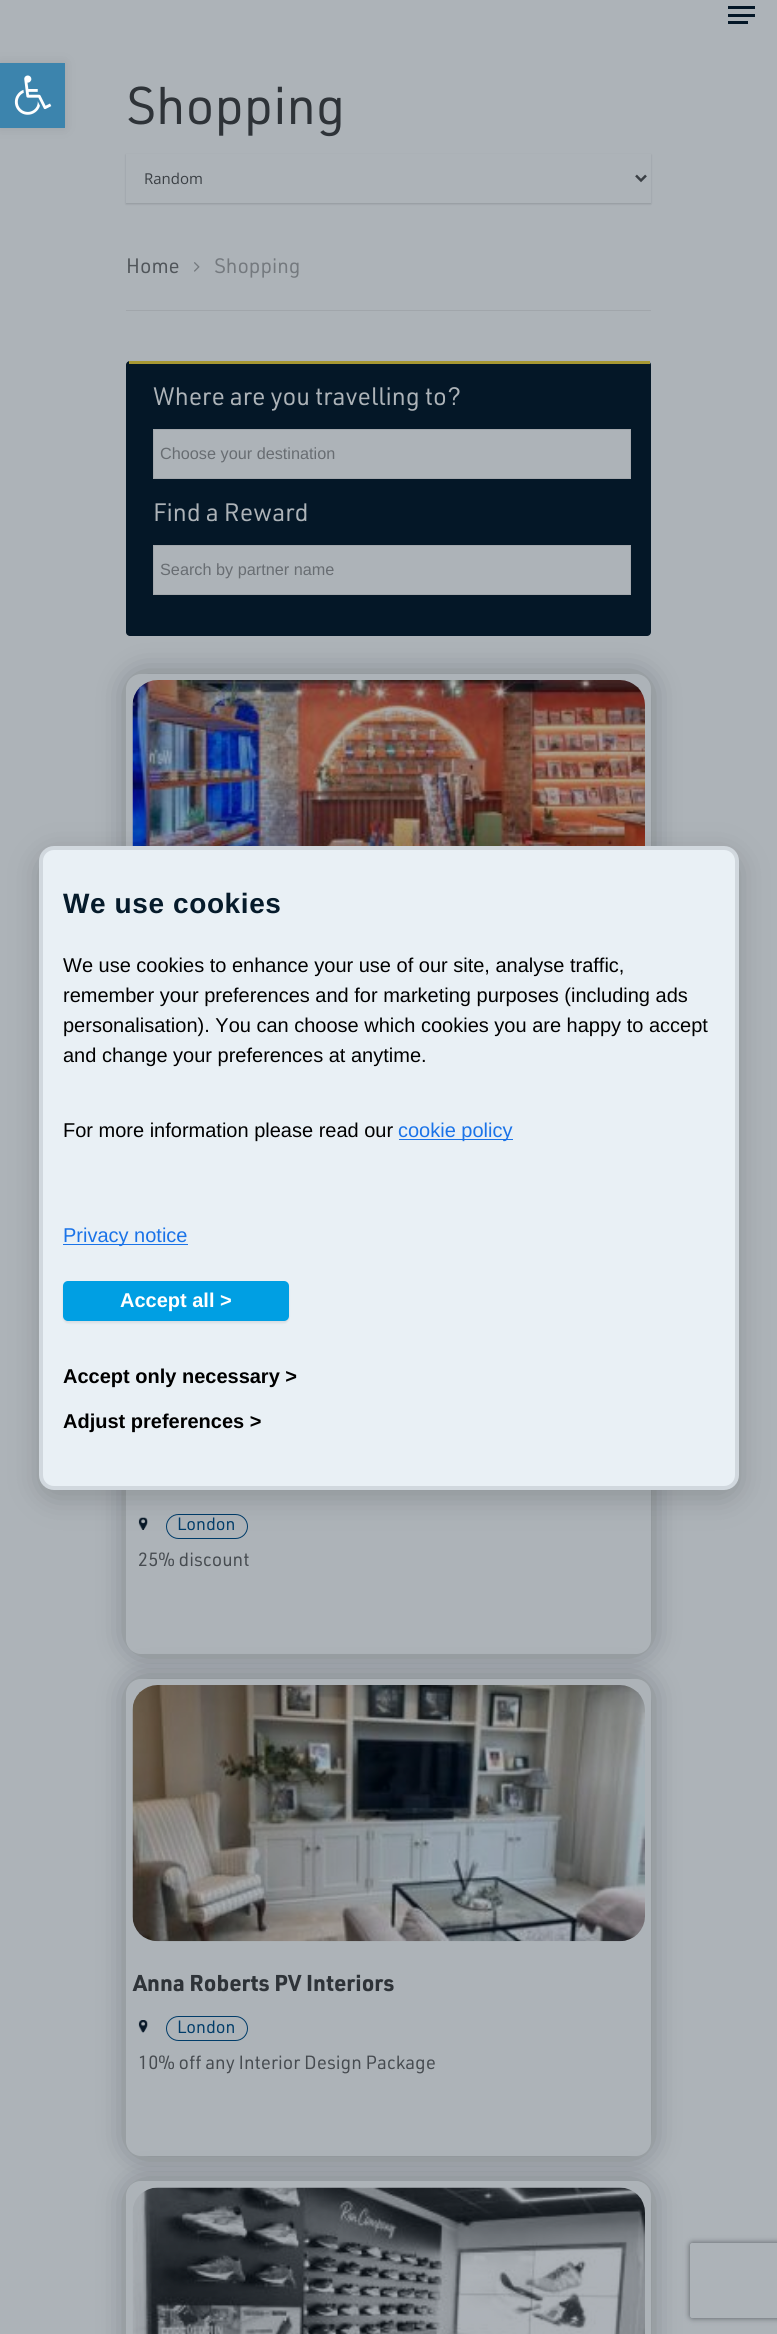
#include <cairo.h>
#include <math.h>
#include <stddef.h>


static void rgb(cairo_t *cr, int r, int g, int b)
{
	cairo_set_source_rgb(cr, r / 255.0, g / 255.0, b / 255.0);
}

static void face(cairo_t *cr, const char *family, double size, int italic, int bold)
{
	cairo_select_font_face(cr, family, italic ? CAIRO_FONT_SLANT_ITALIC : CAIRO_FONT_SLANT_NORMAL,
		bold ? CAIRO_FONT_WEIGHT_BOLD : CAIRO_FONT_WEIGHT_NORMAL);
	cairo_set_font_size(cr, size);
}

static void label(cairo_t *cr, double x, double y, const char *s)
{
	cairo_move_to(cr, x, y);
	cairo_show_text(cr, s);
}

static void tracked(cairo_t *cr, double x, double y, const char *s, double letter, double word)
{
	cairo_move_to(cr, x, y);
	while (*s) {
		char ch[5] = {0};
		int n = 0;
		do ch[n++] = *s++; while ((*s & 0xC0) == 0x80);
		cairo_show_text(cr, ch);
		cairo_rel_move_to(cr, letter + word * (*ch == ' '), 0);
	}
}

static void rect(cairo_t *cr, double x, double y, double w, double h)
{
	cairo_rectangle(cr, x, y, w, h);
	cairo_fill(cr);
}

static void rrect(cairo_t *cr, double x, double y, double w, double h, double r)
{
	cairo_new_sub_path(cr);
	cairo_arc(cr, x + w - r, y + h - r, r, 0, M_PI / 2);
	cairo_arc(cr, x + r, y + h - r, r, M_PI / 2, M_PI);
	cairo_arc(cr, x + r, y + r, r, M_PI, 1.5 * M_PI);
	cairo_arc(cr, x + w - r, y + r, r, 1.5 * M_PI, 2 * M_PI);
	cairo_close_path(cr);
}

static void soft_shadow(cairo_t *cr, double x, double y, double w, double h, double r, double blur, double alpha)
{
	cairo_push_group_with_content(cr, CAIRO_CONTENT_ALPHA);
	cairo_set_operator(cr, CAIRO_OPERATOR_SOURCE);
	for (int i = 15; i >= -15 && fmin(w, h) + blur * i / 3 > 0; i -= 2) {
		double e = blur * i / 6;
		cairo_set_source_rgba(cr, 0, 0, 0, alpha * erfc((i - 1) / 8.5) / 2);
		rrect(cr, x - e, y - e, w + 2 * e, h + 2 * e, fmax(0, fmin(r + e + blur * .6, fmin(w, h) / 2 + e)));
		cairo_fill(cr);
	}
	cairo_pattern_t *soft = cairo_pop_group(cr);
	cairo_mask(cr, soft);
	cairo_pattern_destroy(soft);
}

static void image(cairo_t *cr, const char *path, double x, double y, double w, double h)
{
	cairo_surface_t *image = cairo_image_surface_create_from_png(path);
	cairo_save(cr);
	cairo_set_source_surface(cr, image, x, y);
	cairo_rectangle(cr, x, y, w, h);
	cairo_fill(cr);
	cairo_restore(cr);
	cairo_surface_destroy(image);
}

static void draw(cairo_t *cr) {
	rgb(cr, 173, 179, 184);
	cairo_paint(cr);
	rgb(cr, 0, 0, 0);
	soft_shadow(cr, 0, 63, 65, 65, 0, 6, 0.1);
	rgb(cr, 60, 132, 173);
	rect(cr, 0, 63, 65, 65);
	image(cr, "image0.png", 14, 75, 38, 40);
	rgb(cr, 4, 23, 39);
	rect(cr, 728, 6, 27, 3);
	rect(cr, 728, 21, 20, 3);
	rect(cr, 728, 14, 27, 3);
	face(cr, "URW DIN", 52, 0, 0);
	rgb(cr, 46, 51, 56);
	label(cr, 126, 124, "Shopping");
	rgb(cr, 0, 5, 10);
	soft_shadow(cr, 126, 155, 525, 49, 0, 1, 0.16);
	rgb(cr, 173, 179, 184);
	rect(cr, 126, 154, 525, 49);
	cairo_new_path(cr);
	cairo_move_to(cr, 636, 175.5);
	cairo_line_to(cr, 641, 180.5);
	cairo_line_to(cr, 646, 175.5);
	rgb(cr, 58, 63, 68);
	cairo_set_line_width(cr, 2.5);
	cairo_stroke(cr);
	face(cr, "Open Sans", 15, 0, 0);
	label(cr, 144, 184, "Random");
	rgb(cr, 161, 166, 171);
	rect(cr, 126, 310, 525, 1);
	face(cr, "URW DIN", 20.5, 0, 0);
	rgb(cr, 80, 85, 90);
	label(cr, 126, 273, "Home");
	image(cr, "image1.png", 194, 262, 6, 10);
	rgb(cr, 116, 121, 126);
	label(cr, 214, 273, "Shopping");
	rgb(cr, 4, 23, 39);
	rrect(cr, 126, 361, 525, 275, 4);
	cairo_fill(cr);
	rgb(cr, 167, 152, 51);
	rect(cr, 129, 361, 521, 3);
	face(cr, "URW DIN", 24.75, 0, 0);
	rgb(cr, 173, 179, 184);
	label(cr, 153, 405, "Where are you travelling to?");
	cairo_rectangle(cr, 153.5, 429.5, 477, 49);
	cairo_fill_preserve(cr);
	rgb(cr, 162, 167, 172);
	cairo_set_line_width(cr, 1);
	cairo_stroke(cr);
	face(cr, "Liberation Sans", 16.25, 0, 0);
	rgb(cr, 104, 109, 114);
	label(cr, 160, 459, "Choose your destination");
	face(cr, "URW DIN", 24.75, 0, 0);
	rgb(cr, 173, 179, 184);
	label(cr, 153, 521, "Find a Reward");
	cairo_rectangle(cr, 153.5, 545.5, 477, 49);
	cairo_fill_preserve(cr);
	rgb(cr, 162, 167, 172);
	cairo_stroke(cr);
	face(cr, "Liberation Sans", 16.25, 0, 0);
	rgb(cr, 104, 109, 114);
	label(cr, 160, 575, "Search by partner name");
	rgb(cr, 0, 5, 10);
	soft_shadow(cr, 129, 676, 520, 473, 13, 15.5, 0.32);
	rgb(cr, 173, 179, 184);
	rrect(cr, 126, 674, 525, 477, 15);
	cairo_fill(cr);
	image(cr, "image2.png", 132, 680, 513, 166);
	rgb(cr, 0, 5, 10);
	soft_shadow(cr, 129, 1179, 520, 472, 13, 15.5, 0.32);
	rgb(cr, 173, 179, 184);
	rrect(cr, 126, 1176, 525, 478, 15);
	cairo_fill(cr);
	image(cr, "image3.png", 138, 1517, 10, 13);
	rrect(cr, 166.5, 1514.5, 81, 24, 12);
	rgb(cr, 0, 60, 105);
	cairo_stroke(cr);
	face(cr, "URW DIN", 17.5, 0, 0);
	label(cr, 177, 1530, "London");
	face(cr, "URW DIN", 18.75, 0, 0);
	rgb(cr, 70, 75, 80);
	label(cr, 138, 1566, "25% discount");
	rgb(cr, 0, 5, 10);
	soft_shadow(cr, 129, 1681, 520, 473, 13, 15.5, 0.32);
	rgb(cr, 173, 179, 184);
	rrect(cr, 126, 1679, 525, 477, 15);
	cairo_fill(cr);
	image(cr, "image4.png", 132, 1685, 513, 257);
	face(cr, "URW DIN", 22.5, 0, 1);
	rgb(cr, 46, 51, 56);
	label(cr, 133, 1991, "Anna Roberts PV Interiors");
	image(cr, "image5.png", 138, 2020, 10, 13);
	rrect(cr, 166.5, 2016.5, 81, 24, 12);
	rgb(cr, 0, 60, 105);
	cairo_stroke(cr);
	face(cr, "URW DIN", 17.5, 0, 0);
	label(cr, 177, 2033, "London");
	face(cr, "URW DIN", 18.75, 0, 0);
	rgb(cr, 70, 75, 80);
	label(cr, 138, 2069, "10% off any Interior Design Package");
	rgb(cr, 0, 5, 10);
	soft_shadow(cr, 129, 2184, 520, 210, 13, 15.5, 0.32);
	rgb(cr, 173, 179, 184);
	rrect(cr, 126, 2181, 525, 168, 15);
	cairo_fill(cr);
	image(cr, "image6.png", 132, 2187, 513, 147);
	rgb(cr, 0, 0, 0);
	soft_shadow(cr, 39, 854, 700, 644, 15, 15, 0.18);
	rgb(cr, 233, 240, 245);
	rrect(cr, 41, 848, 696, 640, 13);
	cairo_fill_preserve(cr);
	rgb(cr, 209, 216, 222);
	cairo_set_line_width(cr, 4);
	cairo_stroke(cr);
	face(cr, "Liberation Sans", 28, 0, 1);
	rgb(cr, 6, 27, 43);
	tracked(cr, 63, 913, "We use cookies", 0.6, 0);
	face(cr, "Liberation Sans", 20, 0, 0);
	rgb(cr, 0, 0, 0);
	label(cr, 63, 972, "We use cookies to enhance your use of our site, analyse traffic,");
	label(cr, 63, 1002, "remember your preferences and for marketing purposes (including ads");
	label(cr, 63, 1032, "personalisation). You can choose which cookies you are happy to accept");
	label(cr, 63, 1062, "and change your preferences at anytime.");
	label(cr, 63, 1137, "For more information please read our");
	rgb(cr, 26, 115, 232);
	rect(cr, 399, 1139, 114, 1);
	label(cr, 398, 1137, "cookie policy");
	rect(cr, 63, 1244, 125, 1);
	label(cr, 63, 1242, "Privacy notice");
	rgb(cr, 0, 0, 0);
	soft_shadow(cr, 63, 1283, 226, 40, 5, 1, 0.08);
	rgb(cr, 0, 159, 227);
	rrect(cr, 63, 1281, 226, 40, 5);
	cairo_fill(cr);
	face(cr, "Liberation Sans", 20, 0, 1);
	rgb(cr, 255, 255, 255);
	label(cr, 120, 1307, "Accept all >");
	rgb(cr, 0, 0, 0);
	label(cr, 63, 1383, "Accept only necessary >");
	label(cr, 63, 1428, "Adjust preferences >");
	cairo_save(cr);
	cairo_set_fill_rule(cr, CAIRO_FILL_RULE_EVEN_ODD);
	cairo_new_path(cr);
	cairo_move_to(cr, 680, 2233);
	cairo_line_to(cr, 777, 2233);
	cairo_line_to(cr, 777, 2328);
	cairo_line_to(cr, 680, 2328);
	cairo_close_path(cr);
	cairo_move_to(cr, 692.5, 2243);
	cairo_line_to(cr, 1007.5, 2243);
	cairo_curve_to(cr, 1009, 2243, 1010, 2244, 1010, 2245.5);
	cairo_line_to(cr, 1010, 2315.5);
	cairo_curve_to(cr, 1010, 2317, 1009, 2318, 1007.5, 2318);
	cairo_line_to(cr, 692.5, 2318);
	cairo_curve_to(cr, 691, 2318, 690, 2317, 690, 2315.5);
	cairo_line_to(cr, 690, 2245.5);
	cairo_curve_to(cr, 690, 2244, 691, 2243, 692.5, 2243);
	cairo_close_path(cr);
	cairo_clip(cr);
	rgb(cr, 87, 92, 97);
	soft_shadow(cr, 690, 2243, 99, 75, 2.5, 3, 1);
	cairo_restore(cr);
}

int main(void) {
	cairo_surface_t *surface = cairo_image_surface_create(CAIRO_FORMAT_RGB24, 777, 2334);
	cairo_t *cr = cairo_create(surface);
	cairo_font_options_t *options = cairo_font_options_create();
	cairo_font_options_set_hint_metrics(options, CAIRO_HINT_METRICS_OFF);
	cairo_font_options_set_hint_style(options, CAIRO_HINT_STYLE_NONE);
	cairo_set_font_options(cr, options);
	cairo_set_miter_limit(cr, 4);
	draw(cr);
	cairo_surface_write_to_png(surface, "render.png");
	cairo_font_options_destroy(options);
	cairo_destroy(cr);
	cairo_surface_destroy(surface);
	return 0;
}
